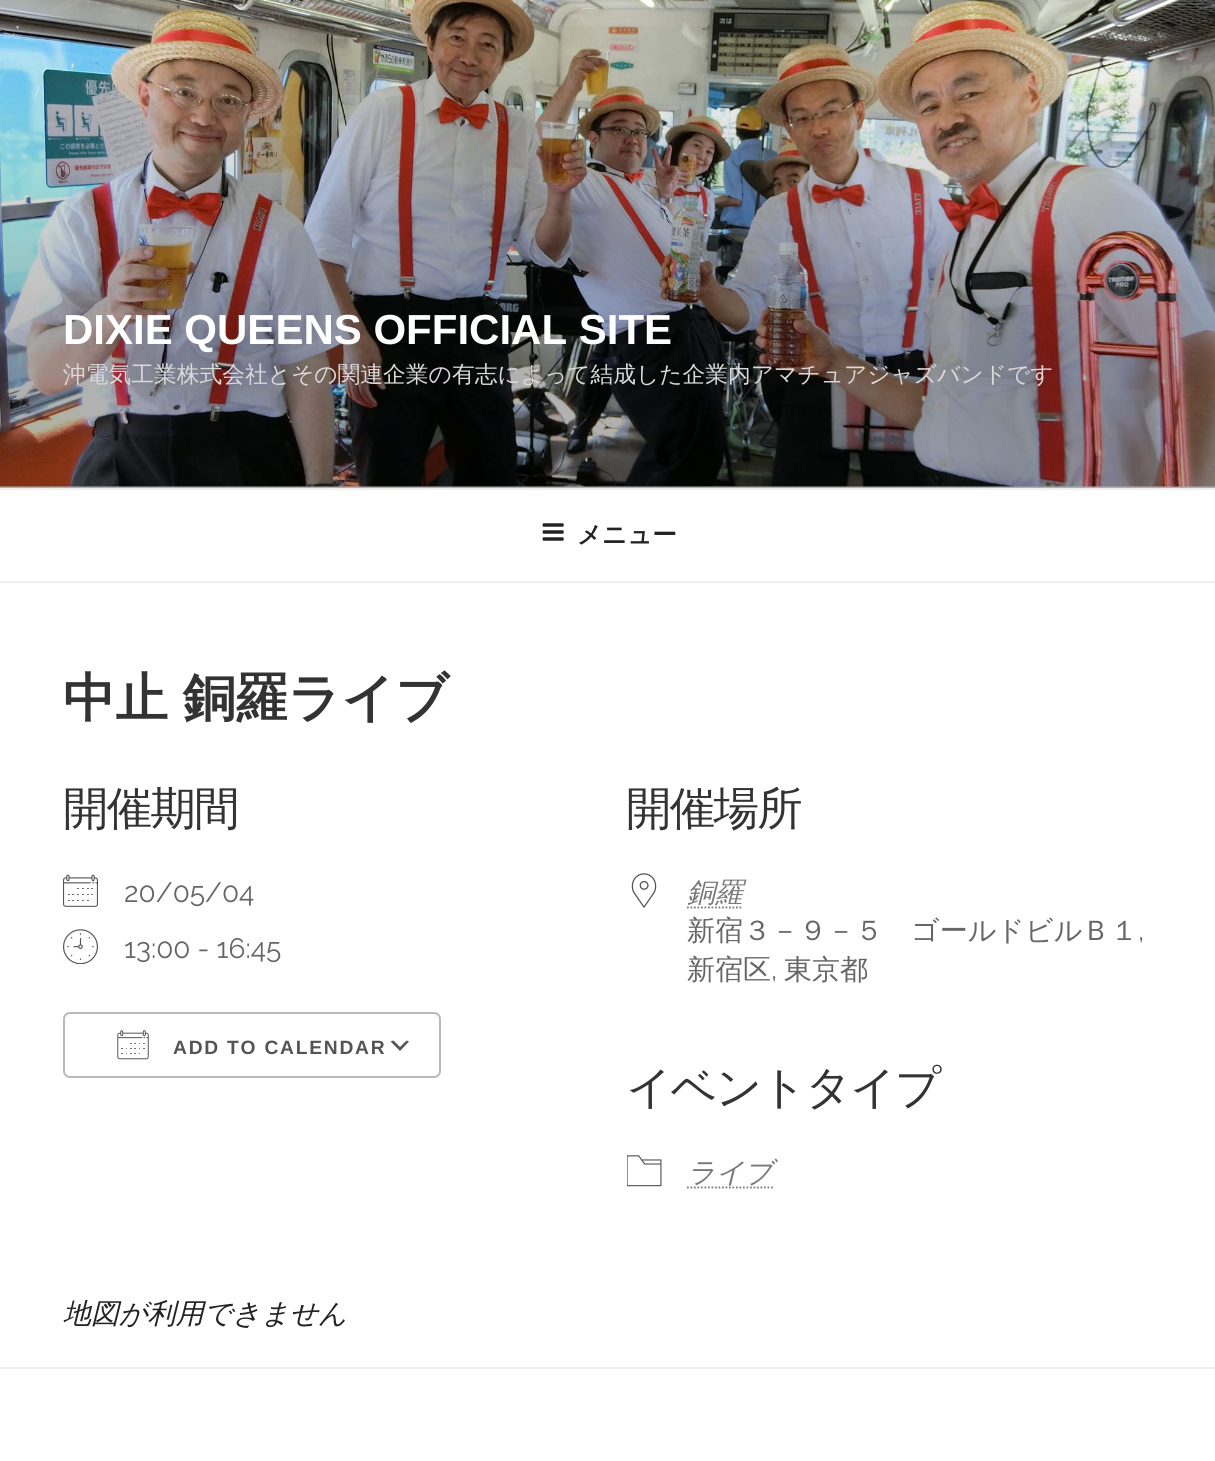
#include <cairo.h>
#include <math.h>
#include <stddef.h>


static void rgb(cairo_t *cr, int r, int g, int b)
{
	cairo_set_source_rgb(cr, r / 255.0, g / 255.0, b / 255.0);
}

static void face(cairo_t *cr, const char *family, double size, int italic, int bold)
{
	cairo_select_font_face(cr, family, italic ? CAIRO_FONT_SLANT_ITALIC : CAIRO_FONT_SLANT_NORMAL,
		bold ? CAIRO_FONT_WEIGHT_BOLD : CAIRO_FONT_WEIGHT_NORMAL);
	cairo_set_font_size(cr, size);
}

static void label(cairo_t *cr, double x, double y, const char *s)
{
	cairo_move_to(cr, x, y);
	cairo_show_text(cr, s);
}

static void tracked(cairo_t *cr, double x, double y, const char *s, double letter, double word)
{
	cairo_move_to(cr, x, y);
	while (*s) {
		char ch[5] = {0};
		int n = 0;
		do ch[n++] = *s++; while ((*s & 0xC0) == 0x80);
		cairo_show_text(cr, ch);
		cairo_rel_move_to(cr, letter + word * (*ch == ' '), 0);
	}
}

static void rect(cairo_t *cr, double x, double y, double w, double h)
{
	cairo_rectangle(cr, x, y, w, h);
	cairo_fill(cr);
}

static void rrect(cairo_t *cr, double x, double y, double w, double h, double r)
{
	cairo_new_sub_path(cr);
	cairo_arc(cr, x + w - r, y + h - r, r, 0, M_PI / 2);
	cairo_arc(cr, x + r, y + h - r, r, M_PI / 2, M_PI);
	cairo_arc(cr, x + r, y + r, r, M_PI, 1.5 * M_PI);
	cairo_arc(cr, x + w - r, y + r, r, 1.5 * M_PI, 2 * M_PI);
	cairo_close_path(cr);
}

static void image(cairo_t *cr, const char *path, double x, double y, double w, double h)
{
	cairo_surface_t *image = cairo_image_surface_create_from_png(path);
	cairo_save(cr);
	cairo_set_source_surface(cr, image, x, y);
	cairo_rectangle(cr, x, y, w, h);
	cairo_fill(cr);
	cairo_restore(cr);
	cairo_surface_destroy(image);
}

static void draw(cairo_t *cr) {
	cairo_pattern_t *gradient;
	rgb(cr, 255, 255, 255);
	cairo_paint(cr);
	rgb(cr, 250, 250, 250);
	rect(cr, 0, 486, 1215, 2);
	image(cr, "image0.png", 0, 0, 1215, 487);
	gradient = cairo_pattern_create_linear(608, 0, 608, 488);
	cairo_pattern_add_color_stop_rgba(gradient, 0, 0, 0, 0, 0);
	cairo_pattern_add_color_stop_rgba(gradient, 0.75, 0, 0, 0, 0.3);
	cairo_pattern_add_color_stop_rgba(gradient, 1, 0, 0, 0, 0.3);
	cairo_set_source(cr, gradient);
	cairo_pattern_destroy(gradient);
	rect(cr, 0, 26, 1215, 462);
	face(cr, "Liberation Sans", 42, 0, 1);
	rgb(cr, 255, 255, 255);
	label(cr, 63, 344, "DIXIE QUEENS OFFICIAL SITE");
	face(cr, "WenQuanYi Zen Hei Medium", 22.75, 0, 0);
	rgb(cr, 219, 217, 218);
	label(cr, 63, 382, "沖電気工業株式会社とその関連企業の有志によって結成した企業内アマチュアジャズバンドです");
	rgb(cr, 238, 238, 238);
	rect(cr, 0, 488, 1215, 2);
	rect(cr, 0, 581, 1215, 2);
	image(cr, "image1.png", 542, 523, 22, 18);
	face(cr, "WenQuanYi Zen Hei", 24.5, 0, 1);
	rgb(cr, 34, 34, 34);
	label(cr, 577, 543, "メニュー");
	face(cr, "WenQuanYi Zen Hei", 52.5, 0, 1);
	rgb(cr, 51, 51, 51);
	tracked(cr, 63, 716, "中止 銅羅ライブ", 0, -1);
	face(cr, "WenQuanYi Zen Hei Medium", 45.5, 0, 0);
	tracked(cr, 63, 824, "開催期間", -1.75, 0);
	image(cr, "image2.png", 63, 874, 35, 33);
	face(cr, "Raleway", 28, 0, 0);
	rgb(cr, 102, 102, 102);
	label(cr, 124, 902, "20/05/04");
	image(cr, "image3.png", 63, 929, 35, 35);
	label(cr, 124, 958, "13:00 - 16:45");
	rgb(cr, 85, 85, 85);
	cairo_new_path(cr);
	cairo_move_to(cr, 393.5, 1040.5);
	cairo_line_to(cr, 400, 1047);
	cairo_line_to(cr, 406.5, 1040.5);
	cairo_line_to(cr, 409, 1041.5);
	cairo_line_to(cr, 400, 1051);
	cairo_line_to(cr, 390.5, 1041.5);
	cairo_close_path(cr);
	cairo_fill(cr);
	rrect(cr, 64, 1013, 376, 64, 6);
	rgb(cr, 186, 186, 186);
	cairo_stroke(cr);
	image(cr, "image4.png", 117, 1030, 32, 30);
	face(cr, "Liberation Sans", 19.25, 0, 1);
	rgb(cr, 84, 84, 84);
	tracked(cr, 173, 1054, "ADD TO CALENDAR", 1.75, 0);
	face(cr, "WenQuanYi Zen Hei Medium", 45.5, 0, 0);
	rgb(cr, 51, 51, 51);
	tracked(cr, 626, 824, "開催場所", -1.75, 0);
	image(cr, "image5.png", 631, 873, 26, 35);
	face(cr, "WenQuanYi Zen Hei Medium", 28, 1, 0);
	rgb(cr, 120, 120, 120);
	label(cr, 687, 902, "銅羅");
	cairo_new_path(cr);
	cairo_move_to(cr, 687, 907.5);
	cairo_line_to(cr, 743, 907.5);
	cairo_set_line_width(cr, 1.8);
	cairo_set_dash(cr, (double[]){1.75, 1.75}, 2, 0);
	cairo_stroke(cr);
	face(cr, "WenQuanYi Zen Hei Medium", 28, 0, 0);
	rgb(cr, 102, 102, 102);
	label(cr, 687, 940, "新宿３－９－５　ゴールドビルＢ１");
	face(cr, "Raleway", 28, 0, 0);
	label(cr, 1138, 940, ",");
	face(cr, "WenQuanYi Zen Hei Medium", 28, 0, 0);
	label(cr, 687, 979, "新宿区");
	face(cr, "Raleway", 28, 0, 0);
	label(cr, 771, 979, ",");
	face(cr, "WenQuanYi Zen Hei Medium", 28, 0, 0);
	label(cr, 784, 979, "東京都");
	face(cr, "WenQuanYi Zen Hei Medium", 45.5, 0, 0);
	rgb(cr, 51, 51, 51);
	tracked(cr, 626, 1103, "イベントタイプ", -1.75, 0);
	image(cr, "image6.png", 627, 1155, 35, 32);
	face(cr, "WenQuanYi Zen Hei Medium", 28, 1, 0);
	rgb(cr, 120, 120, 120);
	label(cr, 687, 1182, "ライブ");
	cairo_new_path(cr);
	cairo_move_to(cr, 687, 1187.5);
	cairo_line_to(cr, 773, 1187.5);
	cairo_stroke(cr);
	rgb(cr, 34, 34, 34);
	label(cr, 63, 1323, "地図が利用できません");
	rgb(cr, 238, 238, 238);
	rect(cr, 0, 1367, 1215, 2);
}

int main(void) {
	cairo_surface_t *surface = cairo_image_surface_create(CAIRO_FORMAT_RGB24, 1215, 1461);
	cairo_t *cr = cairo_create(surface);
	cairo_font_options_t *options = cairo_font_options_create();
	cairo_font_options_set_hint_metrics(options, CAIRO_HINT_METRICS_OFF);
	cairo_font_options_set_hint_style(options, CAIRO_HINT_STYLE_NONE);
	cairo_set_font_options(cr, options);
	cairo_set_miter_limit(cr, 4);
	draw(cr);
	cairo_surface_write_to_png(surface, "render.png");
	cairo_font_options_destroy(options);
	cairo_destroy(cr);
	cairo_surface_destroy(surface);
	return 0;
}
